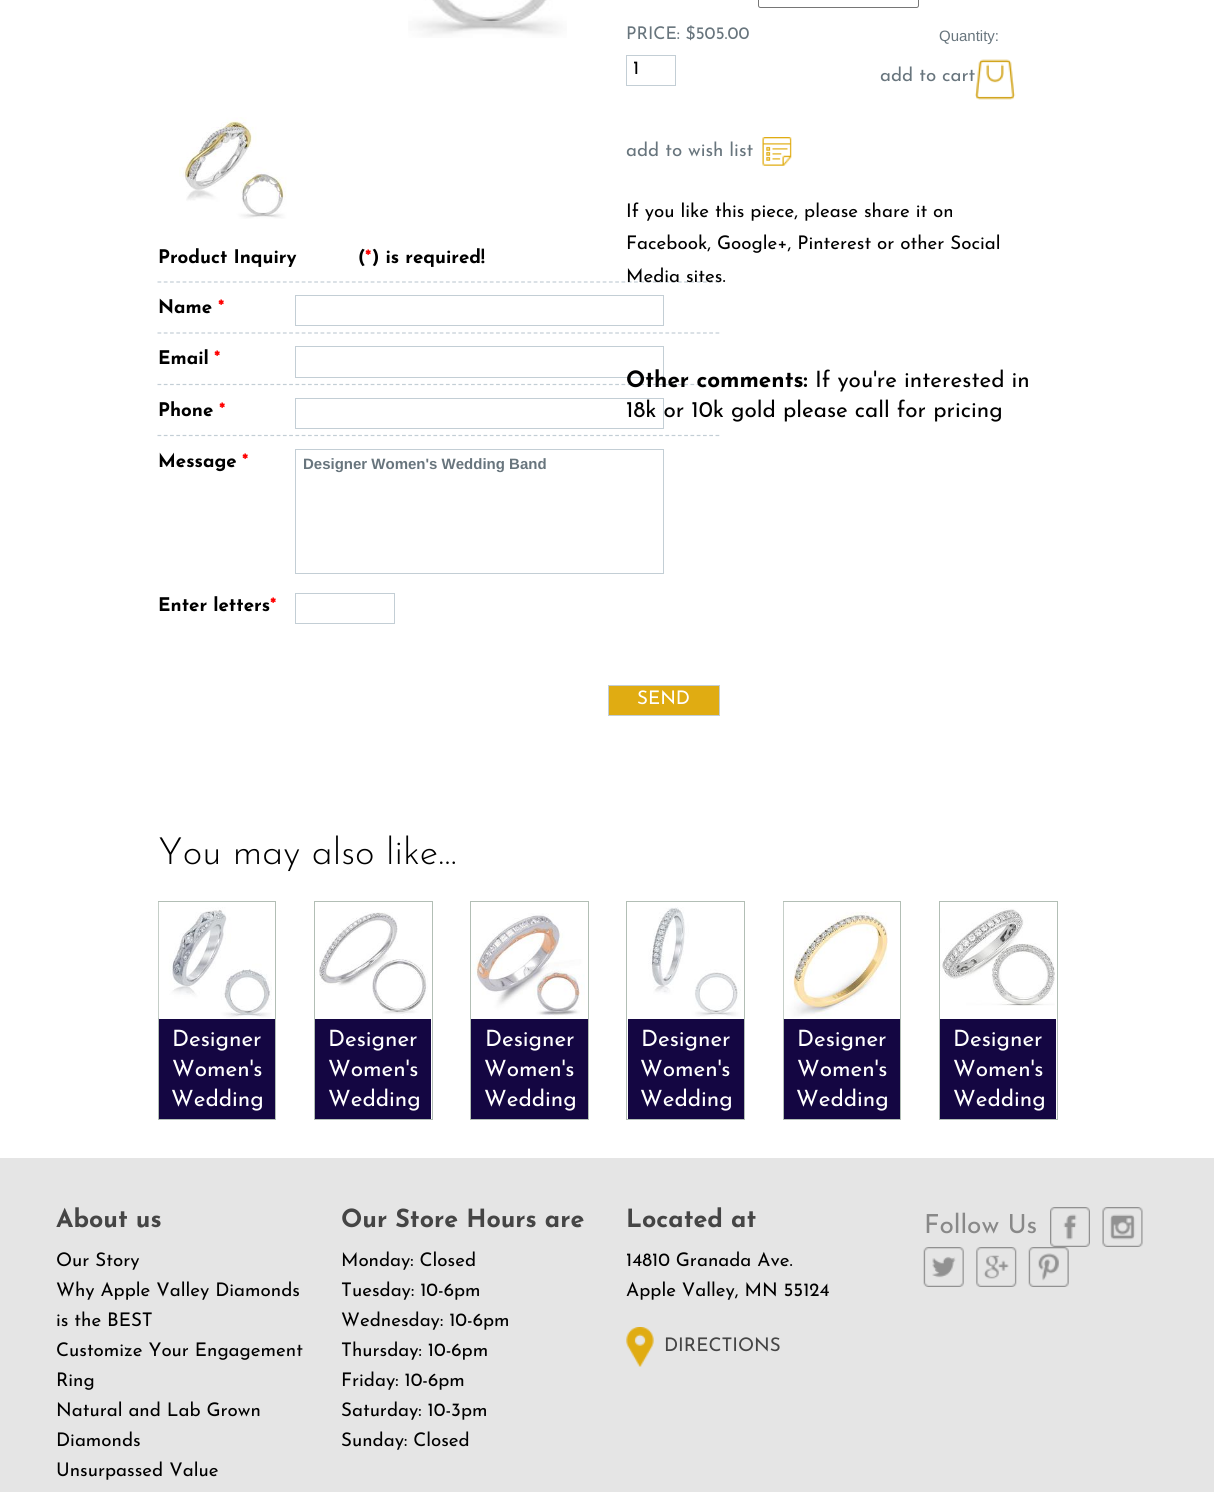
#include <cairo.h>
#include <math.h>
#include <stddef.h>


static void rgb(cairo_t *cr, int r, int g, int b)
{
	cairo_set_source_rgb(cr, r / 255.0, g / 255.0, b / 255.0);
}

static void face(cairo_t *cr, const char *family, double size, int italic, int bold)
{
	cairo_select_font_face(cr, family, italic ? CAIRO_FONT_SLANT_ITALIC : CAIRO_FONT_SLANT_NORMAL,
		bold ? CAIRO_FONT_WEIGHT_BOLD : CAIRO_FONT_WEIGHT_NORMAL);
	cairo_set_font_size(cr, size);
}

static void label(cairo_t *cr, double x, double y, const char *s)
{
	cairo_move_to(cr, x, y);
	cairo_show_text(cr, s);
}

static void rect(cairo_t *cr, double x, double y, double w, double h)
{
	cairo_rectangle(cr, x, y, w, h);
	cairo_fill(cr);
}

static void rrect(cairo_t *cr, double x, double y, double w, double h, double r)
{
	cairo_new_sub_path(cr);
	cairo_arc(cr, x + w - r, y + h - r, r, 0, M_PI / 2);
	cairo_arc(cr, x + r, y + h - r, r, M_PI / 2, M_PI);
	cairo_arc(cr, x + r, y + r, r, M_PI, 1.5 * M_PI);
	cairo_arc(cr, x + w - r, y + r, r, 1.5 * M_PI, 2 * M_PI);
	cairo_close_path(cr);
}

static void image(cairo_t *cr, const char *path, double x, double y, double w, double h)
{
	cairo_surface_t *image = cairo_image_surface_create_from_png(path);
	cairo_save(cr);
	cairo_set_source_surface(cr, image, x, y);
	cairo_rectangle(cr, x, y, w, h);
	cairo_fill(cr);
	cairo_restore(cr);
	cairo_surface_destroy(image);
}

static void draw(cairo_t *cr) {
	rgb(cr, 255, 255, 255);
	cairo_paint(cr);
	image(cr, "image0.png", 408, 0, 159, 38);
	image(cr, "image1.png", 179, 117, 108, 102);
	cairo_new_path(cr);
	cairo_move_to(cr, 157.5, 282);
	cairo_line_to(cr, 720, 282);
	rgb(cr, 195, 206, 213);
	cairo_set_line_width(cr, 1.2);
	cairo_set_dash(cr, (double[]){3.75, 2.52}, 2, 0);
	cairo_stroke(cr);
	face(cr, "Josefin Sans", 18.75, 0, 1);
	rgb(cr, 0, 0, 0);
	label(cr, 158, 263, "Product Inquiry");
	label(cr, 358, 263, "( ) is required!");
	rgb(cr, 255, 0, 0);
	label(cr, 365, 263, "*");
	cairo_new_path(cr);
	cairo_move_to(cr, 157.5, 333);
	cairo_line_to(cr, 720, 333);
	rgb(cr, 195, 206, 213);
	cairo_stroke(cr);
	rgb(cr, 0, 0, 0);
	label(cr, 158, 313, "Name");
	rgb(cr, 255, 0, 0);
	label(cr, 218, 313, "*");
	cairo_rectangle(cr, 295.5, 295.5, 368, 30);
	rgb(cr, 195, 206, 213);
	cairo_set_line_width(cr, 1);
	cairo_set_dash(cr, NULL, 0, 0);
	cairo_stroke(cr);
	cairo_new_path(cr);
	cairo_move_to(cr, 157.5, 384.5);
	cairo_line_to(cr, 720, 384.5);
	cairo_set_line_width(cr, 1.2);
	cairo_set_dash(cr, (double[]){3.75, 2.52}, 2, 0);
	cairo_stroke(cr);
	rgb(cr, 0, 0, 0);
	label(cr, 158, 364, "Email");
	rgb(cr, 255, 0, 0);
	label(cr, 214, 364, "*");
	cairo_rectangle(cr, 295.5, 346.5, 368, 31);
	rgb(cr, 195, 206, 213);
	cairo_set_line_width(cr, 1);
	cairo_set_dash(cr, NULL, 0, 0);
	cairo_stroke(cr);
	cairo_new_path(cr);
	cairo_move_to(cr, 157.5, 435.5);
	cairo_line_to(cr, 720, 435.5);
	cairo_set_line_width(cr, 1.2);
	cairo_set_dash(cr, (double[]){3.75, 2.52}, 2, 0);
	cairo_stroke(cr);
	rgb(cr, 0, 0, 0);
	label(cr, 158, 416, "Phone");
	rgb(cr, 255, 0, 0);
	label(cr, 219, 416, "*");
	cairo_rectangle(cr, 295.5, 398.5, 368, 30);
	rgb(cr, 195, 206, 213);
	cairo_set_line_width(cr, 1);
	cairo_set_dash(cr, NULL, 0, 0);
	cairo_stroke(cr);
	rgb(cr, 0, 0, 0);
	label(cr, 158, 467, "Message");
	rgb(cr, 255, 0, 0);
	label(cr, 242, 467, "*");
	cairo_rectangle(cr, 295.5, 449.5, 368, 124);
	rgb(cr, 195, 206, 213);
	cairo_stroke(cr);
	face(cr, "Liberation Sans", 15, 0, 1);
	rgb(cr, 104, 117, 125);
	label(cr, 303, 469, "Designer Women's Wedding Band");
	face(cr, "Josefin Sans", 18.75, 0, 1);
	rgb(cr, 0, 0, 0);
	label(cr, 158, 611, "Enter letters");
	rgb(cr, 255, 0, 0);
	label(cr, 270, 611, "*");
	cairo_rectangle(cr, 295.5, 593.5, 99, 30);
	rgb(cr, 195, 206, 213);
	cairo_stroke(cr);
	rgb(cr, 224, 172, 18);
	cairo_rectangle(cr, 608.5, 685.5, 111, 30);
	cairo_fill_preserve(cr);
	rgb(cr, 195, 206, 213);
	cairo_stroke(cr);
	face(cr, "Josefin Sans", 18.75, 0, 0);
	rgb(cr, 255, 255, 255);
	label(cr, 637, 704, "SEND");
	rrect(cr, 758.5, -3.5, 160, 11, 2);
	rgb(cr, 118, 118, 118);
	cairo_stroke(cr);
	face(cr, "Josefin Sans", 17.5, 0, 0);
	rgb(cr, 104, 117, 125);
	label(cr, 626, 39, "PRICE: $505.00");
	face(cr, "Liberation Sans", 15, 0, 0);
	label(cr, 939, 41, "Quantity:");
	cairo_rectangle(cr, 626.5, 55.5, 49, 30);
	rgb(cr, 195, 206, 213);
	cairo_stroke(cr);
	face(cr, "Josefin Sans", 18.75, 0, 0);
	rgb(cr, 0, 0, 0);
	label(cr, 633, 74, "1");
	image(cr, "image2.png", 975, 59, 41, 41);
	rgb(cr, 104, 117, 125);
	label(cr, 880, 81, "add to cart");
	image(cr, "image3.png", 762, 137, 30, 29);
	label(cr, 626, 156, "add to wish list");
	rgb(cr, 0, 0, 0);
	label(cr, 626, 217, "If you like this piece, please share it on");
	label(cr, 626, 249, "Facebook, Google+, Pinterest or other Social");
	label(cr, 626, 282, "Media sites.");
	face(cr, "Josefin Sans", 22.5, 0, 1);
	label(cr, 626, 387, "Other comments:");
	face(cr, "Josefin Sans", 22.5, 0, 0);
	label(cr, 815, 387, "If you're interested in");
	label(cr, 626, 417, "18k or 10k gold please call for pricing");
	face(cr, "Josefin Sans Light", 37.5, 0, 0);
	label(cr, 158, 864, "You may also like...");
	cairo_rectangle(cr, 158.5, 901.5, 117, 218);
	rgb(cr, 178, 190, 181);
	cairo_stroke(cr);
	image(cr, "image4.png", 158, 902, 114, 117);
	rgb(cr, 20, 6, 66);
	rect(cr, 159, 1019, 116, 100);
	face(cr, "Josefin Sans", 22.5, 0, 0);
	rgb(cr, 255, 255, 255);
	label(cr, 172, 1046, "Designer");
	label(cr, 172, 1076, "Women's");
	label(cr, 171, 1106, "Wedding");
	cairo_rectangle(cr, 314.5, 901.5, 118, 218);
	rgb(cr, 178, 190, 181);
	cairo_stroke(cr);
	image(cr, "image5.png", 315, 912, 113, 104);
	rgb(cr, 20, 6, 66);
	rect(cr, 315, 1019, 116, 100);
	rgb(cr, 255, 255, 255);
	label(cr, 328, 1046, "Designer");
	label(cr, 328, 1076, "Women's");
	label(cr, 328, 1106, "Wedding");
	cairo_rectangle(cr, 470.5, 901.5, 118, 218);
	rgb(cr, 178, 190, 181);
	cairo_stroke(cr);
	image(cr, "image6.png", 471, 913, 114, 103);
	rgb(cr, 20, 6, 66);
	rect(cr, 471, 1019, 117, 100);
	rgb(cr, 255, 255, 255);
	label(cr, 485, 1046, "Designer");
	label(cr, 484, 1076, "Women's");
	label(cr, 484, 1106, "Wedding");
	cairo_rectangle(cr, 626.5, 901.5, 118, 218);
	rgb(cr, 178, 190, 181);
	cairo_stroke(cr);
	image(cr, "image7.png", 648, 907, 93, 110);
	rgb(cr, 20, 6, 66);
	rect(cr, 628, 1019, 116, 100);
	rgb(cr, 255, 255, 255);
	label(cr, 641, 1046, "Designer");
	label(cr, 640, 1076, "Women's");
	label(cr, 640, 1106, "Wedding");
	cairo_rectangle(cr, 783.5, 901.5, 117, 218);
	rgb(cr, 178, 190, 181);
	cairo_stroke(cr);
	image(cr, "image8.png", 783, 902, 105, 117);
	rgb(cr, 20, 6, 66);
	rect(cr, 784, 1019, 116, 100);
	rgb(cr, 255, 255, 255);
	label(cr, 797, 1046, "Designer");
	label(cr, 797, 1076, "Women's");
	label(cr, 796, 1106, "Wedding");
	cairo_rectangle(cr, 939.5, 901.5, 118, 218);
	rgb(cr, 178, 190, 181);
	cairo_stroke(cr);
	image(cr, "image9.png", 940, 908, 115, 98);
	rgb(cr, 20, 6, 66);
	rect(cr, 940, 1019, 116, 100);
	rgb(cr, 255, 255, 255);
	label(cr, 953, 1046, "Designer");
	label(cr, 953, 1076, "Women's");
	label(cr, 953, 1106, "Wedding");
	rgb(cr, 229, 229, 229);
	rect(cr, 0, 1158, 1214, 334);
	face(cr, "Josefin Sans", 25, 0, 1);
	rgb(cr, 69, 69, 69);
	label(cr, 56, 1227, "About us");
	face(cr, "Josefin Sans", 18.75, 0, 0);
	rgb(cr, 0, 0, 0);
	label(cr, 56, 1266, "Our Story");
	label(cr, 56, 1296, "Why Apple Valley Diamonds");
	label(cr, 56, 1326, "is the BEST");
	label(cr, 56, 1356, "Customize Your Engagement");
	label(cr, 56, 1386, "Ring");
	label(cr, 56, 1416, "Natural and Lab Grown");
	label(cr, 56, 1446, "Diamonds");
	label(cr, 56, 1476, "Unsurpassed Value");
	face(cr, "Josefin Sans", 25, 0, 1);
	rgb(cr, 69, 69, 69);
	label(cr, 341, 1227, "Our Store Hours are");
	face(cr, "Josefin Sans", 18.75, 0, 0);
	rgb(cr, 0, 0, 0);
	label(cr, 341, 1266, "Monday: Closed");
	label(cr, 341, 1296, "Tuesday: 10-6pm");
	label(cr, 341, 1326, "Wednesday: 10-6pm");
	label(cr, 341, 1356, "Thursday: 10-6pm");
	label(cr, 341, 1386, "Friday: 10-6pm");
	label(cr, 341, 1416, "Saturday: 10-3pm");
	label(cr, 341, 1446, "Sunday: Closed");
	face(cr, "Josefin Sans", 25, 0, 1);
	rgb(cr, 69, 69, 69);
	label(cr, 626, 1227, "Located at");
	face(cr, "Josefin Sans", 18.75, 0, 0);
	rgb(cr, 0, 0, 0);
	label(cr, 626, 1266, "14810 Granada Ave.");
	label(cr, 626, 1296, "Apple Valley, MN 55124");
	image(cr, "image10.png", 626, 1327, 28, 40);
	rgb(cr, 69, 69, 69);
	label(cr, 664, 1351, "DIRECTIONS");
	face(cr, "Josefin Sans", 26.25, 0, 0);
	rgb(cr, 136, 136, 136);
	label(cr, 924, 1233, "Follow Us");
	image(cr, "image11.png", 1050, 1207, 40, 40);
	image(cr, "image12.png", 1102, 1207, 41, 40);
	image(cr, "image13.png", 923, 1247, 41, 40);
	image(cr, "image14.png", 976, 1247, 41, 40);
	image(cr, "image15.png", 1028, 1247, 41, 40);
}

int main(void) {
	cairo_surface_t *surface = cairo_image_surface_create(CAIRO_FORMAT_RGB24, 1214, 1492);
	cairo_t *cr = cairo_create(surface);
	cairo_font_options_t *options = cairo_font_options_create();
	cairo_font_options_set_hint_metrics(options, CAIRO_HINT_METRICS_OFF);
	cairo_font_options_set_hint_style(options, CAIRO_HINT_STYLE_NONE);
	cairo_set_font_options(cr, options);
	cairo_set_miter_limit(cr, 4);
	draw(cr);
	cairo_surface_write_to_png(surface, "render.png");
	cairo_font_options_destroy(options);
	cairo_destroy(cr);
	cairo_surface_destroy(surface);
	return 0;
}
